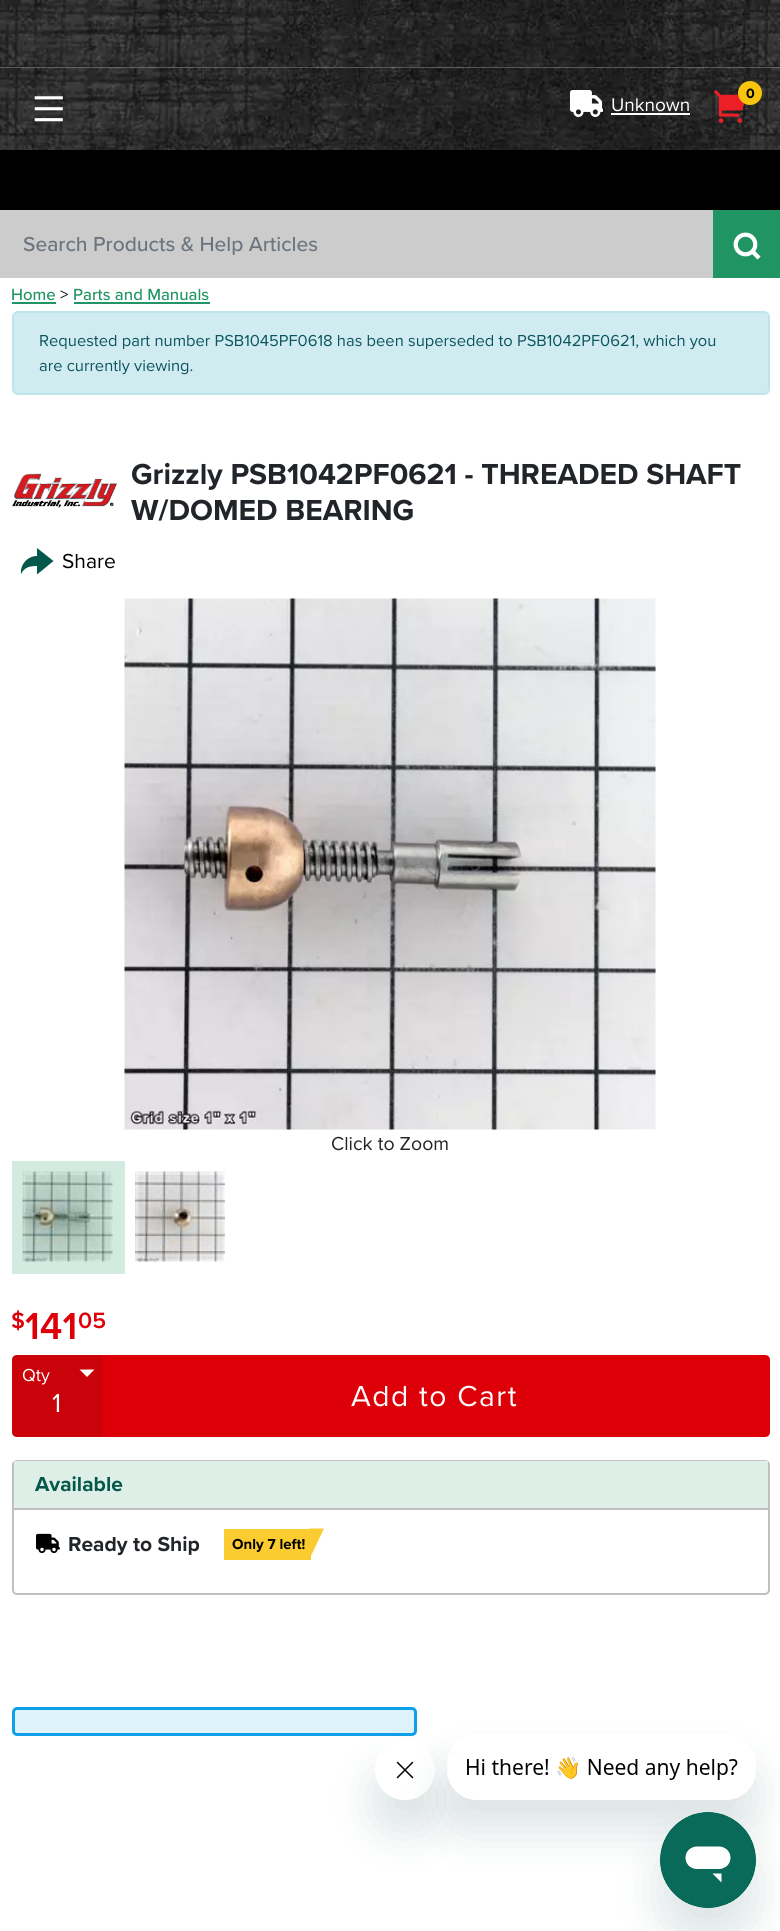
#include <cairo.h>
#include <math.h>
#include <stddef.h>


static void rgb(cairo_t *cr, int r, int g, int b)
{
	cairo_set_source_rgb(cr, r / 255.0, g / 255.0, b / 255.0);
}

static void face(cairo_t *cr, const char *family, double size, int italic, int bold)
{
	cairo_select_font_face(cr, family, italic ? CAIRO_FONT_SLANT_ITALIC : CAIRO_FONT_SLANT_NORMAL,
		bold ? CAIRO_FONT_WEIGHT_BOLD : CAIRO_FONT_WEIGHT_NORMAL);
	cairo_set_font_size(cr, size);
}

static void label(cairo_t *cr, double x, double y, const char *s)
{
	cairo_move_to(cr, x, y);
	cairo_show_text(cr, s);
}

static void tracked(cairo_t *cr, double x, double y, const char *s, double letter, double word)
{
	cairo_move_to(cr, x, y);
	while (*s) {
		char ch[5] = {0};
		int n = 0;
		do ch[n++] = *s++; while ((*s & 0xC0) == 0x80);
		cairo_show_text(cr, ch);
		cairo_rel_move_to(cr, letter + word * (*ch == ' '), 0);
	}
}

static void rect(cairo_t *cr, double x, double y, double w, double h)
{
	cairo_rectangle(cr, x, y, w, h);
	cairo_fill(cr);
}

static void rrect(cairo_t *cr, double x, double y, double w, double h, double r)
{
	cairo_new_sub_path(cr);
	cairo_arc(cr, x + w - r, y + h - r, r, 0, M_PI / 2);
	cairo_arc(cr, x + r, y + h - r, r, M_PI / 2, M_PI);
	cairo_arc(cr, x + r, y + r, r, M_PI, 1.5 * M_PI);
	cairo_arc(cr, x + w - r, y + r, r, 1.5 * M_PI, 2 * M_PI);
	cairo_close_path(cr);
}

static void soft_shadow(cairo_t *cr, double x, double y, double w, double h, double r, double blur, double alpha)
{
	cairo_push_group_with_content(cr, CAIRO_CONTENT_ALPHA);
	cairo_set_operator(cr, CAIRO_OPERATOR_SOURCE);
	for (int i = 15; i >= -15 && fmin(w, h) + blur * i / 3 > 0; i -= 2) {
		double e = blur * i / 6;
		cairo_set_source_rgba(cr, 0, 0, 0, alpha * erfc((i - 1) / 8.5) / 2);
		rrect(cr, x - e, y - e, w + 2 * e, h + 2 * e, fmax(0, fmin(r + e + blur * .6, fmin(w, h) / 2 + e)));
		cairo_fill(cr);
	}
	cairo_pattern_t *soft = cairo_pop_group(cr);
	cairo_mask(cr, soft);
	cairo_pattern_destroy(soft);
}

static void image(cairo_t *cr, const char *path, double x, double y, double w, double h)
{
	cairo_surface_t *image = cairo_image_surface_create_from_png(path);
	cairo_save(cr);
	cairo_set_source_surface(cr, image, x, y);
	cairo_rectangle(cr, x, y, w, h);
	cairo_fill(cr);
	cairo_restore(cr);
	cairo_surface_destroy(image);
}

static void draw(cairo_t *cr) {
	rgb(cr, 255, 255, 255);
	cairo_paint(cr);
	rgb(cr, 210, 234, 224);
	rect(cr, 12, 1161, 113, 113);
	image(cr, "image0.png", 0, 0, 780, 68);
	image(cr, "image1.png", 0, 67, 780, 83);
	image(cr, "image2.png", 713, 89, 32, 34);
	rgb(cr, 248, 197, 14);
	cairo_arc(cr, 750, 93, 12, 0, 2 * M_PI);
	cairo_fill(cr);
	face(cr, "Proxima Nova", 14, 0, 1);
	rgb(cr, 0, 0, 0);
	label(cr, 746, 98, "0");
	image(cr, "image3.png", 34, 96, 29, 26);
	image(cr, "image4.png", 570, 90, 33, 27);
	face(cr, "Proxima Nova", 19, 0, 0);
	rgb(cr, 255, 255, 255);
	label(cr, 611, 111, "Unknown");
	rect(cr, 611, 113, 79, 2);
	rgb(cr, 0, 0, 0);
	rect(cr, 0, 150, 780, 60);
	rgb(cr, 204, 204, 204);
	rect(cr, 0, 210, 713, 68);
	face(cr, "Proxima Nova Medium", 21, 0, 0);
	rgb(cr, 108, 117, 125);
	label(cr, 23, 251, "Search Products & Help Articles");
	rgb(cr, 32, 148, 98);
	rect(cr, 713, 210, 67, 68);
	image(cr, "image5.png", 733, 232, 28, 28);
	face(cr, "Proxima Nova Medium", 16.75, 0, 0);
	label(cr, 11, 300, "Home");
	rect(cr, 12, 302, 44, 2);
	rgb(cr, 33, 37, 41);
	label(cr, 60, 300, ">");
	rgb(cr, 32, 148, 98);
	label(cr, 73, 300, "Parts and Manuals");
	rect(cr, 74, 302, 136, 2);
	rgb(cr, 209, 236, 241);
	rrect(cr, 13, 312, 756, 82, 5);
	cairo_fill_preserve(cr);
	rgb(cr, 190, 229, 235);
	cairo_stroke(cr);
	face(cr, "Proxima Nova", 16.5, 0, 0);
	rgb(cr, 12, 84, 96);
	label(cr, 39, 346, "Requested part number PSB1045PF0618 has been superseded to PSB1042PF0621, which you");
	label(cr, 39, 371, "are currently viewing.");
	image(cr, "image6.png", 12, 473, 105, 35);
	face(cr, "Proxima Nova", 30, 0, 1);
	rgb(cr, 33, 37, 41);
	label(cr, 131, 484, "Grizzly PSB1042PF0621 - THREADED SHAFT");
	label(cr, 131, 520, "W/DOMED BEARING");
	rgb(cr, 4, 87, 75);
	cairo_new_path(cr);
	cairo_move_to(cr, 37, 566);
	cairo_curve_to(cr, 30, 566, 24.5, 567, 21, 574);
	cairo_curve_to(cr, 20, 564.5, 27.5, 556, 37, 556);
	cairo_line_to(cr, 37, 548);
	cairo_line_to(cr, 53.5, 561);
	cairo_line_to(cr, 37, 574.5);
	cairo_close_path(cr);
	cairo_fill(cr);
	face(cr, "Proxima Nova", 21, 0, 0);
	rgb(cr, 0, 0, 0);
	label(cr, 62, 568, "Share");
	image(cr, "image7.png", 124, 598, 532, 532);
	face(cr, "Proxima Nova", 19.5, 0, 0);
	rgb(cr, 33, 37, 41);
	label(cr, 331, 1150, "Click to Zoom");
	image(cr, "image8.png", 22, 1171, 91, 91);
	image(cr, "image9.png", 135, 1171, 90, 91);
	face(cr, "Proxima Nova SemiBold", 23, 0, 0);
	rgb(cr, 222, 0, 8);
	label(cr, 11, 1328, "$");
	face(cr, "Proxima Nova SemiBold", 39, 0, 0);
	label(cr, 25, 1339, "141");
	face(cr, "Proxima Nova SemiBold", 23, 0, 0);
	label(cr, 78, 1328, "05");
	rgb(cr, 202, 3, 10);
	cairo_new_path(cr);
	cairo_move_to(cr, 17, 1355);
	cairo_line_to(cr, 102, 1355);
	cairo_line_to(cr, 102, 1437);
	cairo_line_to(cr, 17, 1437);
	cairo_curve_to(cr, 14, 1437, 12, 1435, 12, 1432);
	cairo_line_to(cr, 12, 1360);
	cairo_curve_to(cr, 12, 1357, 14, 1355, 17, 1355);
	cairo_close_path(cr);
	cairo_fill(cr);
	face(cr, "Proxima Nova", 18, 0, 0);
	rgb(cr, 255, 255, 255);
	label(cr, 22, 1381, "Qty");
	cairo_new_path(cr);
	cairo_move_to(cr, 79.5, 1369.5);
	cairo_line_to(cr, 94.5, 1369.5);
	cairo_line_to(cr, 87, 1377);
	cairo_close_path(cr);
	cairo_fill(cr);
	face(cr, "Proxima Nova", 27, 0, 0);
	label(cr, 52, 1412, "1");
	rgb(cr, 222, 0, 8);
	cairo_new_path(cr);
	cairo_move_to(cr, 102, 1355);
	cairo_line_to(cr, 765, 1355);
	cairo_curve_to(cr, 768, 1355, 770, 1357, 770, 1360);
	cairo_line_to(cr, 770, 1432);
	cairo_curve_to(cr, 770, 1435, 768, 1437, 765, 1437);
	cairo_line_to(cr, 102, 1437);
	cairo_close_path(cr);
	cairo_fill(cr);
	face(cr, "Proxima Nova", 30, 0, 0);
	rgb(cr, 255, 255, 255);
	tracked(cr, 351, 1406, "Add to Cart", 1.5, 0);
	rrect(cr, 13, 1461, 756, 133, 4);
	rgb(cr, 192, 192, 192);
	cairo_stroke(cr);
	rgb(cr, 221, 239, 231);
	rect(cr, 14, 1461, 754, 47);
	rgb(cr, 192, 192, 192);
	rect(cr, 14, 1508, 754, 2);
	face(cr, "Proxima Nova", 21, 0, 1);
	rgb(cr, 4, 87, 75);
	label(cr, 35, 1491, "Available");
	image(cr, "image10.png", 36, 1533, 24, 21);
	rgb(cr, 33, 37, 41);
	label(cr, 68, 1551, "Ready to Ship");
	rgb(cr, 251, 204, 48);
	rect(cr, 224, 1529, 87, 31);
	face(cr, "Proxima Nova", 15, 0, 1);
	rgb(cr, 0, 0, 0);
	label(cr, 232, 1549, "Only 7 left!");
	rgb(cr, 251, 204, 48);
	cairo_new_path(cr);
	cairo_move_to(cr, 309, 1560);
	cairo_line_to(cr, 309, 1528.5);
	cairo_line_to(cr, 324, 1528.5);
	cairo_close_path(cr);
	cairo_fill(cr);
	rgb(cr, 223, 243, 253);
	rrect(cr, 13.5, 1708.5, 402, 26, 3.5);
	cairo_fill_preserve(cr);
	rgb(cr, 15, 160, 234);
	cairo_set_line_width(cr, 3);
	cairo_stroke(cr);
	cairo_save(cr);
	cairo_set_fill_rule(cr, CAIRO_FILL_RULE_EVEN_ODD);
	cairo_new_path(cr);
	cairo_move_to(cr, 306, 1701);
	cairo_line_to(cr, 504, 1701);
	cairo_line_to(cr, 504, 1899);
	cairo_line_to(cr, 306, 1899);
	cairo_close_path(cr);
	cairo_move_to(cr, 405, 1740);
	cairo_curve_to(cr, 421.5, 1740, 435, 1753.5, 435, 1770);
	cairo_curve_to(cr, 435, 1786.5, 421.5, 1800, 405, 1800);
	cairo_curve_to(cr, 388.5, 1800, 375, 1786.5, 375, 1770);
	cairo_curve_to(cr, 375, 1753.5, 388.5, 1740, 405, 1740);
	cairo_close_path(cr);
	cairo_clip(cr);
	rgb(cr, 23, 73, 77);
	soft_shadow(cr, 375, 1770, 60, 60, 30, 22.5, 0.15);
	cairo_restore(cr);
	image(cr, "image12.png", 396, 1761, 18, 18);
	cairo_save(cr);
	cairo_set_fill_rule(cr, CAIRO_FILL_RULE_EVEN_ODD);
	cairo_new_path(cr);
	cairo_move_to(cr, 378, 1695);
	cairo_line_to(cr, 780, 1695);
	cairo_line_to(cr, 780, 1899);
	cairo_line_to(cr, 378, 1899);
	cairo_close_path(cr);
	cairo_move_to(cr, 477, 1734);
	cairo_line_to(cr, 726, 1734);
	cairo_curve_to(cr, 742.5, 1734, 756, 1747.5, 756, 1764);
	cairo_line_to(cr, 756, 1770);
	cairo_curve_to(cr, 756, 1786.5, 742.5, 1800, 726, 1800);
	cairo_line_to(cr, 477, 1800);
	cairo_curve_to(cr, 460.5, 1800, 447, 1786.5, 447, 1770);
	cairo_line_to(cr, 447, 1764);
	cairo_curve_to(cr, 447, 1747.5, 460.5, 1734, 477, 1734);
	cairo_close_path(cr);
	cairo_clip(cr);
	rgb(cr, 23, 73, 77);
	soft_shadow(cr, 447, 1764, 309, 66, 30, 22.5, 0.15);
	cairo_restore(cr);
	image(cr, "image11.png", 448, 1757, 290, 41);
	rgb(cr, 23, 73, 77);
	soft_shadow(cr, 660, 1842, 96, 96, 48, 22.5, 0.15);
	image(cr, "image13.png", 660, 1812, 96, 96);
}

int main(void) {
	cairo_surface_t *surface = cairo_image_surface_create(CAIRO_FORMAT_RGB24, 780, 1931);
	cairo_t *cr = cairo_create(surface);
	cairo_font_options_t *options = cairo_font_options_create();
	cairo_font_options_set_hint_metrics(options, CAIRO_HINT_METRICS_OFF);
	cairo_font_options_set_hint_style(options, CAIRO_HINT_STYLE_NONE);
	cairo_set_font_options(cr, options);
	cairo_set_miter_limit(cr, 4);
	draw(cr);
	cairo_surface_write_to_png(surface, "render.png");
	cairo_font_options_destroy(options);
	cairo_destroy(cr);
	cairo_surface_destroy(surface);
	return 0;
}
